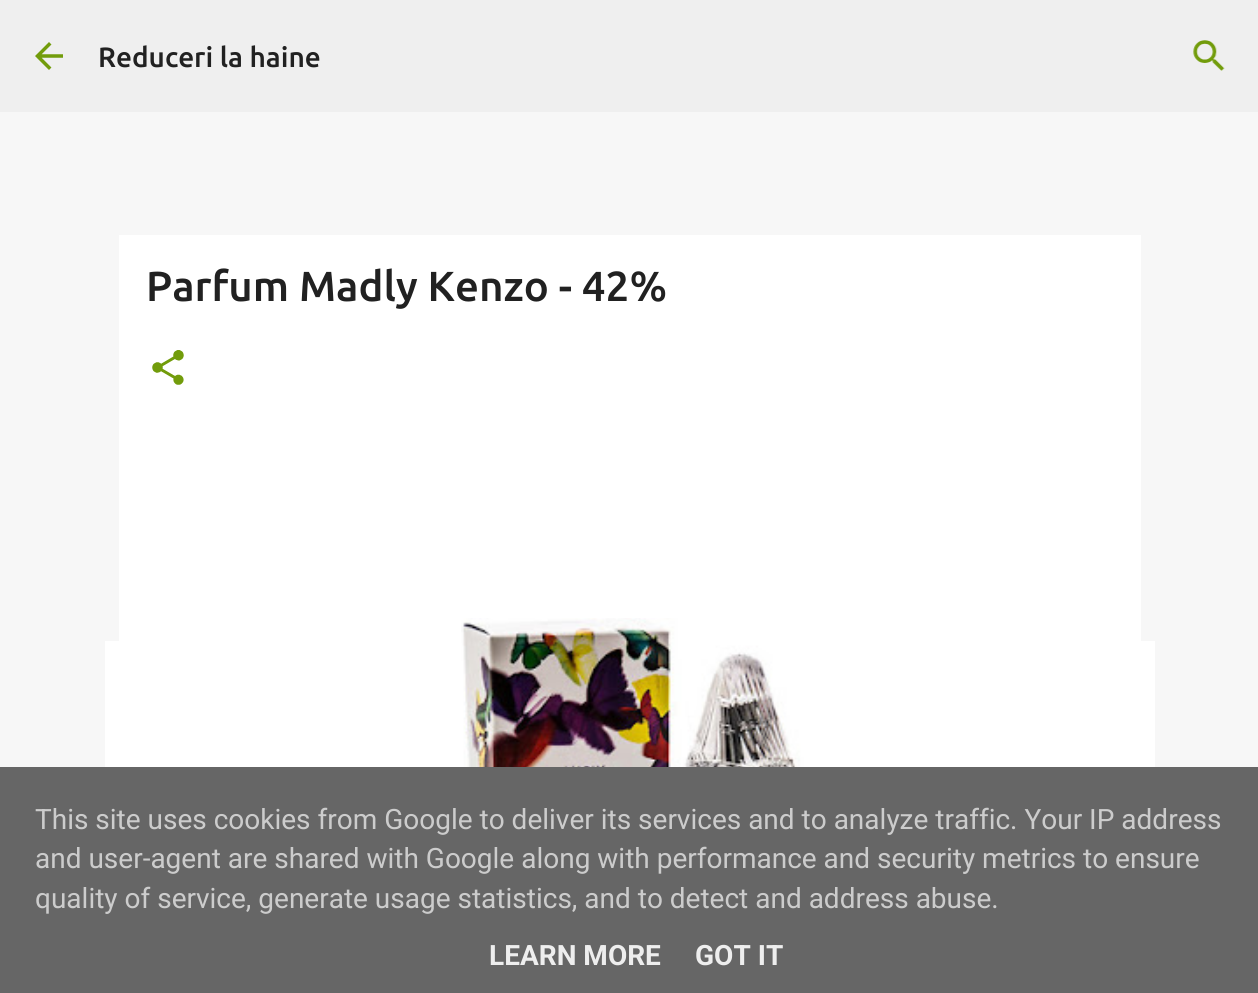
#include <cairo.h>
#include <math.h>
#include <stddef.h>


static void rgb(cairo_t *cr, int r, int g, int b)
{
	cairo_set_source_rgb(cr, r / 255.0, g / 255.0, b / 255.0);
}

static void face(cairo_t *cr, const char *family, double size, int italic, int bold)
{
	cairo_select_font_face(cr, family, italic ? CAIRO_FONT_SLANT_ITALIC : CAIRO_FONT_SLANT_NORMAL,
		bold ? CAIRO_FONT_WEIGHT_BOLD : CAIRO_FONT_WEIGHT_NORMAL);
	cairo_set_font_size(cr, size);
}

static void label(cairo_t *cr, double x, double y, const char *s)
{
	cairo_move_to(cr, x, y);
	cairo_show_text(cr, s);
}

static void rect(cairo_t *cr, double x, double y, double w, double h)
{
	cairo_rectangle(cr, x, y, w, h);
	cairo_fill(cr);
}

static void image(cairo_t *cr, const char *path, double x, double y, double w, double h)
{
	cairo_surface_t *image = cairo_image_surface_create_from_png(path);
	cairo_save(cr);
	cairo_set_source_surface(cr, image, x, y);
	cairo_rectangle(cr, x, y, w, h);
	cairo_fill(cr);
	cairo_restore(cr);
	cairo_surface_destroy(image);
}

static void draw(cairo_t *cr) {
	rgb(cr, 247, 247, 247);
	cairo_paint(cr);
	rgb(cr, 239, 239, 239);
	rect(cr, 0, 0, 1258, 112);
	image(cr, "image0.png", 35, 42, 28, 28);
	face(cr, "Ubuntu Medium", 28, 0, 0);
	rgb(cr, 33, 33, 33);
	label(cr, 98, 67, "Reduceri la haine");
	image(cr, "image1.png", 1193, 40, 32, 31);
	rgb(cr, 255, 255, 255);
	rect(cr, 105, 641, 1050, 126);
	rect(cr, 119, 235, 1022, 406);
	face(cr, "Ubuntu Medium", 42, 0, 0);
	rgb(cr, 33, 33, 33);
	label(cr, 146, 301, "Parfum Madly Kenzo - 42%");
	image(cr, "image2.png", 152, 350, 32, 35);
	image(cr, "image3.png", 461, 618, 367, 149);
	rgb(cr, 102, 102, 102);
	rect(cr, 0, 767, 1258, 226);
	face(cr, "Roboto", 28, 0, 0);
	rgb(cr, 204, 204, 204);
	label(cr, 35, 829, "This site uses cookies from Google to deliver its services and to analyze traffic. Your IP address");
	label(cr, 35, 868, "and user-agent are shared with Google along with performance and security metrics to ensure");
	label(cr, 35, 908, "quality of service, generate usage statistics, and to detect and address abuse.");
	face(cr, "Roboto", 28, 0, 1);
	rgb(cr, 238, 238, 238);
	label(cr, 489, 965, "LEARN MORE");
	label(cr, 695, 965, "GOT IT");
}

int main(void) {
	cairo_surface_t *surface = cairo_image_surface_create(CAIRO_FORMAT_RGB24, 1258, 993);
	cairo_t *cr = cairo_create(surface);
	cairo_font_options_t *options = cairo_font_options_create();
	cairo_font_options_set_hint_metrics(options, CAIRO_HINT_METRICS_OFF);
	cairo_font_options_set_hint_style(options, CAIRO_HINT_STYLE_NONE);
	cairo_set_font_options(cr, options);
	cairo_set_miter_limit(cr, 4);
	draw(cr);
	cairo_surface_write_to_png(surface, "render.png");
	cairo_font_options_destroy(options);
	cairo_destroy(cr);
	cairo_surface_destroy(surface);
	return 0;
}
